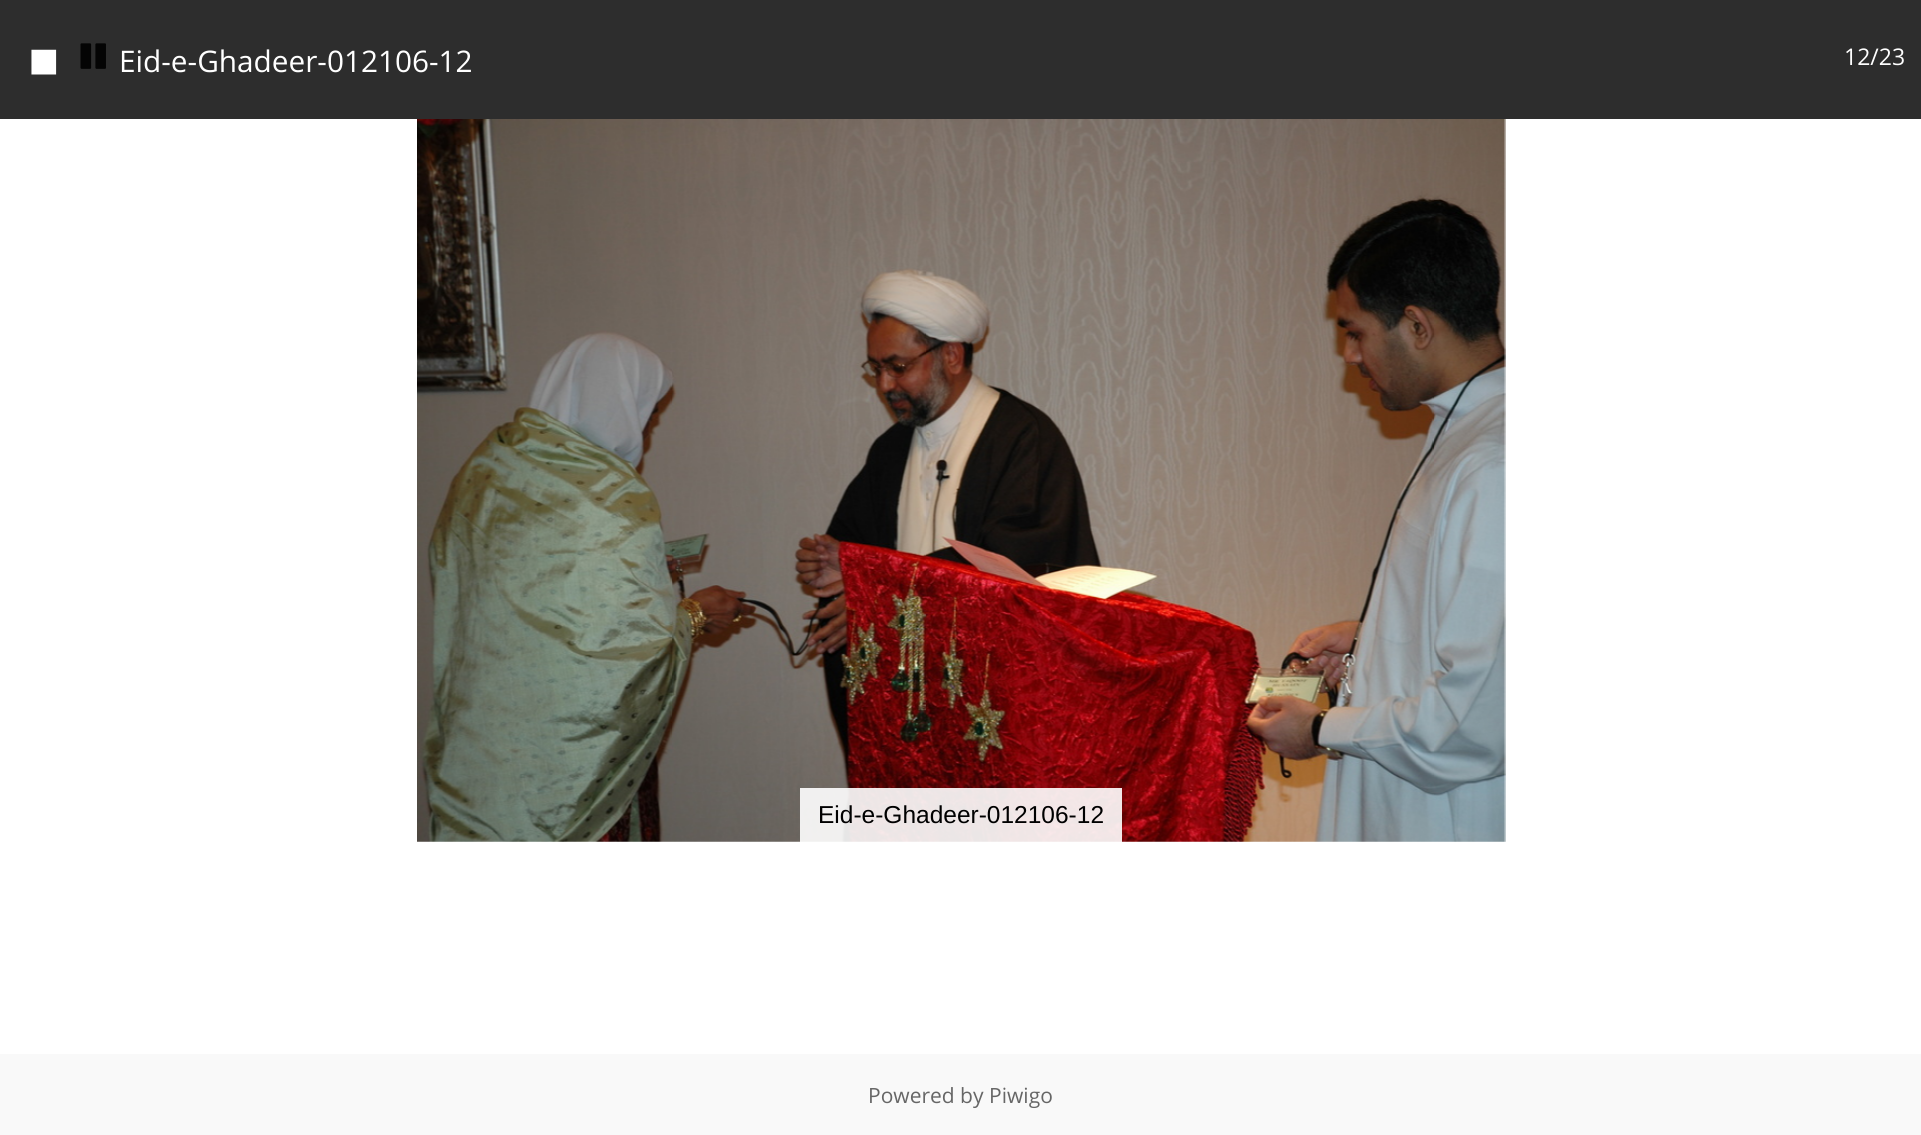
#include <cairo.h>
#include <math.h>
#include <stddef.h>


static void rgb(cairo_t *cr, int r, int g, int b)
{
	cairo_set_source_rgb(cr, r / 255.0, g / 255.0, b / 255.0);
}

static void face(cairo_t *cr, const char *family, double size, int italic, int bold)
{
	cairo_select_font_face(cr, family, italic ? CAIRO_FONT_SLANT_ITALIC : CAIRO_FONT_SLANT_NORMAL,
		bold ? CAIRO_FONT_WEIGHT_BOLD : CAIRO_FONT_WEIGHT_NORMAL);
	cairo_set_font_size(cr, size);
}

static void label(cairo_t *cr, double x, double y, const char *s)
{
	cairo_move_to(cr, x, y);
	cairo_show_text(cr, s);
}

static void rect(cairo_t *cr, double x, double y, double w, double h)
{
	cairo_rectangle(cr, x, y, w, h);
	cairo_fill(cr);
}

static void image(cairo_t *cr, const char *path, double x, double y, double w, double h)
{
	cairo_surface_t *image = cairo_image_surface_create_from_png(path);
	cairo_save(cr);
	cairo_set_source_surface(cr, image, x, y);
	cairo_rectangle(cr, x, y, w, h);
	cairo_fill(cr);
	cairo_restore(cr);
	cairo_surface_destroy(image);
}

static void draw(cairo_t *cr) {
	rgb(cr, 255, 255, 255);
	cairo_paint(cr);
	rgb(cr, 45, 45, 45);
	rect(cr, 0, 0, 1921, 119);
	face(cr, "DejaVu Sans", 38, 0, 0);
	rgb(cr, 255, 255, 255);
	label(cr, 28, 72, "◼");
	image(cr, "image0.png", 80, 43, 26, 26);
	face(cr, "Open Sans", 29.75, 0, 0);
	label(cr, 119, 72, "Eid-e-Ghadeer-012106-12");
	face(cr, "Open Sans", 23, 0, 0);
	label(cr, 1844, 65, "12/23");
	image(cr, "image1.png", 417, 119, 1089, 723);
	cairo_set_source_rgba(cr, 1, 1, 1, 0.9);
	rect(cr, 800, 788, 322, 54);
	face(cr, "Liberation Sans", 24.5, 0, 0);
	rgb(cr, 0, 0, 0);
	label(cr, 818, 823, "Eid-e-Ghadeer-012106-12");
	rgb(cr, 249, 249, 249);
	rect(cr, 0, 1054, 1921, 81);
	face(cr, "Open Sans", 21, 0, 0);
	rgb(cr, 102, 102, 102);
	label(cr, 868, 1103, "Powered by Piwigo");
}

int main(void) {
	cairo_surface_t *surface = cairo_image_surface_create(CAIRO_FORMAT_RGB24, 1921, 1135);
	cairo_t *cr = cairo_create(surface);
	cairo_font_options_t *options = cairo_font_options_create();
	cairo_font_options_set_hint_metrics(options, CAIRO_HINT_METRICS_OFF);
	cairo_font_options_set_hint_style(options, CAIRO_HINT_STYLE_NONE);
	cairo_set_font_options(cr, options);
	cairo_set_miter_limit(cr, 4);
	draw(cr);
	cairo_surface_write_to_png(surface, "render.png");
	cairo_font_options_destroy(options);
	cairo_destroy(cr);
	cairo_surface_destroy(surface);
	return 0;
}
